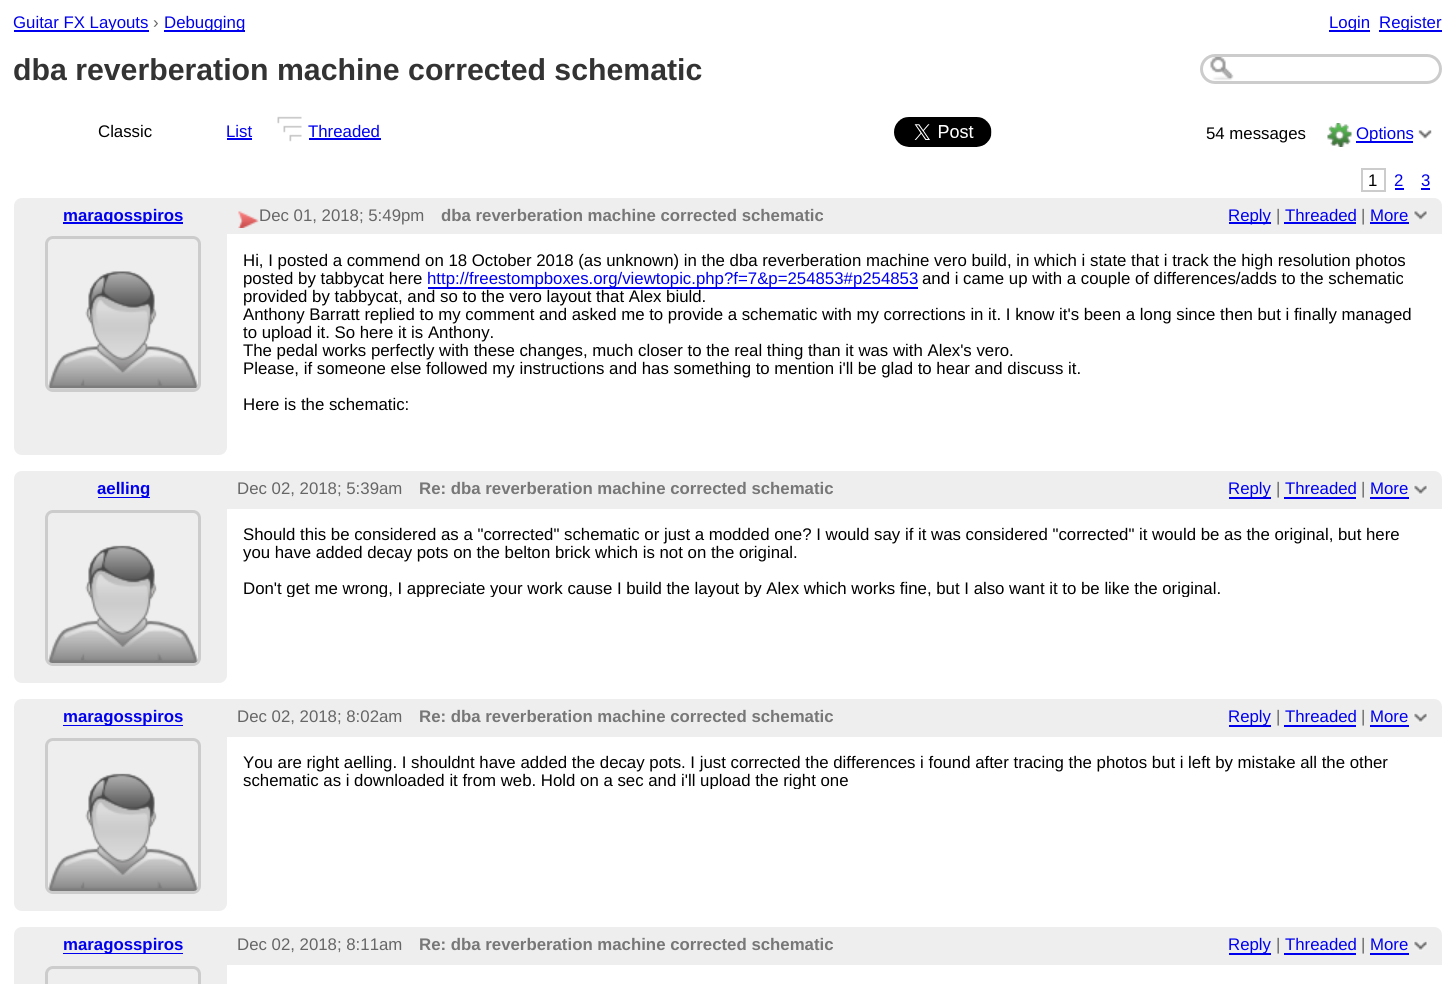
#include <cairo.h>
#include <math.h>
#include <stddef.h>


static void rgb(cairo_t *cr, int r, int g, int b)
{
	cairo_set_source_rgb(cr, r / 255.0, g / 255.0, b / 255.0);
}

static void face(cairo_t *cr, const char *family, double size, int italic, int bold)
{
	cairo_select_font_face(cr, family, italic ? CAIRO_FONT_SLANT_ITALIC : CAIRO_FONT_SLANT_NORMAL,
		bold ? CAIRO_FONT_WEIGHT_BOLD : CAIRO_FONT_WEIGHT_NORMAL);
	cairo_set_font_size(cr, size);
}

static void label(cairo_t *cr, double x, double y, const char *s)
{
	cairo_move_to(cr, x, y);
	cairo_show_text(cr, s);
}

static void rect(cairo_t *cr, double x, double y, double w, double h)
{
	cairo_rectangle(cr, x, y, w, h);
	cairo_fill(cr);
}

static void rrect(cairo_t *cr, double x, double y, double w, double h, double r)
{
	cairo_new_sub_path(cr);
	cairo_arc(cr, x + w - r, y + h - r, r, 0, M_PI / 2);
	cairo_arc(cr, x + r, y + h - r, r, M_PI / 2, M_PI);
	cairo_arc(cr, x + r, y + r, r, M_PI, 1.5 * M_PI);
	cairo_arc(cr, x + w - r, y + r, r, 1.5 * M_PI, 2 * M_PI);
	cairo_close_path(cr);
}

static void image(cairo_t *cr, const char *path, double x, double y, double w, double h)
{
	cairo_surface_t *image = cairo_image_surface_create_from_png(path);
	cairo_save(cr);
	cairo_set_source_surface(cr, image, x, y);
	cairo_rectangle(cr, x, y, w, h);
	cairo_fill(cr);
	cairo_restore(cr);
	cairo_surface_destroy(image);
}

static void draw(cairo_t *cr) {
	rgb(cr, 255, 255, 255);
	cairo_paint(cr);
	rgb(cr, 0, 0, 238);
	rect(cr, 14, 30, 135, 2);
	face(cr, "Liberation Sans", 16.8, 0, 0);
	label(cr, 13, 28, "Guitar FX Layouts");
	rgb(cr, 102, 102, 102);
	label(cr, 153, 28, "›");
	rgb(cr, 0, 0, 238);
	rect(cr, 164, 30, 81, 2);
	label(cr, 164, 28, "Debugging");
	rect(cr, 1329, 30, 41, 2);
	label(cr, 1329, 28, "Login");
	rect(cr, 1379, 30, 63, 2);
	label(cr, 1379, 28, "Register");
	face(cr, "Liberation Sans", 30.25, 0, 1);
	rgb(cr, 51, 51, 51);
	label(cr, 13, 80, "dba reverberation machine corrected schematic");
	image(cr, "image0.png", 1210, 57, 24, 24);
	rrect(cr, 1201.5, 55.5, 239, 27, 13.5);
	rgb(cr, 204, 204, 204);
	cairo_set_line_width(cr, 3);
	cairo_stroke(cr);
	face(cr, "Liberation Sans", 16.8, 0, 0);
	rgb(cr, 0, 0, 0);
	label(cr, 98, 137, "Classic");
	rgb(cr, 0, 0, 238);
	label(cr, 226, 137, "List");
	rect(cr, 227, 138, 25, 2);
	image(cr, "image1.png", 277, 116, 25, 26);
	label(cr, 308, 137, "Threaded");
	rect(cr, 309, 138, 72, 2);
	image(cr, "image2.png", 894, 117, 98, 30);
	rgb(cr, 0, 0, 0);
	label(cr, 1206, 139, "54 messages");
	image(cr, "image3.png", 1327, 123, 25, 24);
	rgb(cr, 0, 0, 238);
	rect(cr, 1356, 141, 57, 2);
	label(cr, 1356, 139, "Options");
	image(cr, "image4.png", 1418, 130, 14, 9);
	cairo_rectangle(cr, 1362, 169, 23, 22);
	rgb(cr, 204, 204, 204);
	cairo_set_line_width(cr, 2);
	cairo_stroke(cr);
	rgb(cr, 0, 0, 0);
	label(cr, 1368, 186, "1");
	rgb(cr, 0, 0, 238);
	label(cr, 1394, 186, "2");
	rect(cr, 1395, 188, 9, 2);
	label(cr, 1421, 186, "3");
	rect(cr, 1421, 188, 9, 2);
	rgb(cr, 238, 238, 238);
	cairo_new_path(cr);
	cairo_move_to(cr, 22, 198);
	cairo_line_to(cr, 1434, 198);
	cairo_curve_to(cr, 1438.5, 198, 1442, 201.5, 1442, 206);
	cairo_line_to(cr, 1442, 234);
	cairo_line_to(cr, 14, 234);
	cairo_line_to(cr, 14, 206);
	cairo_curve_to(cr, 14, 201.5, 17.5, 198, 22, 198);
	cairo_close_path(cr);
	cairo_fill(cr);
	rgb(cr, 0, 0, 238);
	rect(cr, 63, 222, 120, 2);
	cairo_save(cr);
	cairo_rectangle(cr, 18, 206, 210, 18);
	cairo_clip(cr);
	face(cr, "Liberation Sans", 16.8, 0, 1);
	label(cr, 63, 221, "maragosspiros");
	cairo_restore(cr);
	image(cr, "image5.png", 238, 211, 21, 17);
	rgb(cr, 102, 102, 102);
	label(cr, 259, 221, "Dec 01, 2018; 5:49pm");
	face(cr, "Liberation Sans", 16.8, 0, 1);
	rgb(cr, 119, 119, 119);
	label(cr, 441, 221, "dba reverberation machine corrected schematic");
	rgb(cr, 0, 0, 238);
	rect(cr, 1229, 222, 42, 2);
	face(cr, "Liberation Sans", 16.8, 0, 0);
	label(cr, 1228, 221, "Reply");
	rgb(cr, 102, 102, 102);
	label(cr, 1276, 221, "|");
	rgb(cr, 0, 0, 238);
	label(cr, 1285, 221, "Threaded");
	rect(cr, 1284, 222, 72, 2);
	rgb(cr, 102, 102, 102);
	label(cr, 1361, 221, "|");
	rgb(cr, 0, 0, 238);
	label(cr, 1370, 221, "More");
	rect(cr, 1370, 222, 39, 2);
	image(cr, "image6.png", 1413, 211, 15, 9);
	rgb(cr, 238, 238, 238);
	cairo_new_path(cr);
	cairo_move_to(cr, 14, 234);
	cairo_line_to(cr, 227, 234);
	cairo_line_to(cr, 227, 447);
	cairo_curve_to(cr, 227, 451.5, 223.5, 455, 219, 455);
	cairo_line_to(cr, 22, 455);
	cairo_curve_to(cr, 17.5, 455, 14, 451.5, 14, 447);
	cairo_close_path(cr);
	cairo_fill(cr);
	rrect(cr, 46.5, 237.5, 153, 153, 6.5);
	rgb(cr, 204, 204, 204);
	cairo_set_line_width(cr, 3);
	cairo_stroke(cr);
	image(cr, "image7.png", 48, 271, 150, 118);
	rgb(cr, 0, 0, 0);
	label(cr, 243, 266, "Hi, I posted a commend on 18 October 2018 (as unknown) in the dba reverberation machine vero build, in which i state that i track the high resolution photos");
	label(cr, 243, 284, "posted by tabbycat here");
	rgb(cr, 0, 0, 238);
	rect(cr, 428, 287, 490, 2);
	label(cr, 427, 284, "http://freestompboxes.org/viewtopic.php?f=7&p=254853#p254853");
	rgb(cr, 0, 0, 0);
	label(cr, 922, 284, "and i came up with a couple of differences/adds to the schematic");
	label(cr, 243, 302, "provided by tabbycat, and so to the vero layout that Alex biuld.");
	label(cr, 243, 320, "Anthony Barratt replied to my comment and asked me to provide a schematic with my corrections in it. I know it's been a long since then but i finally managed");
	label(cr, 243, 338, "to upload it. So here it is Anthony.");
	label(cr, 243, 356, "The pedal works perfectly with these changes, much closer to the real thing than it was with Alex's vero.");
	label(cr, 243, 374, "Please, if someone else followed my instructions and has something to mention i'll be glad to hear and discuss it.");
	label(cr, 243, 410, "Here is the schematic:");
	rgb(cr, 238, 238, 238);
	cairo_new_path(cr);
	cairo_move_to(cr, 22, 471);
	cairo_line_to(cr, 1434, 471);
	cairo_curve_to(cr, 1438.5, 471, 1442, 474.5, 1442, 479);
	cairo_line_to(cr, 1442, 509);
	cairo_line_to(cr, 14, 509);
	cairo_line_to(cr, 14, 479);
	cairo_curve_to(cr, 14, 474.5, 17.5, 471, 22, 471);
	cairo_close_path(cr);
	cairo_fill(cr);
	rgb(cr, 0, 0, 238);
	rect(cr, 98, 497, 52, 1);
	face(cr, "Liberation Sans", 16.8, 0, 1);
	label(cr, 97, 494, "aelling");
	face(cr, "Liberation Sans", 16.8, 0, 0);
	rgb(cr, 102, 102, 102);
	label(cr, 237, 494, "Dec 02, 2018; 5:39am");
	face(cr, "Liberation Sans", 16.8, 0, 1);
	rgb(cr, 119, 119, 119);
	label(cr, 419, 494, "Re: dba reverberation machine corrected schematic");
	rgb(cr, 0, 0, 238);
	rect(cr, 1229, 497, 42, 2);
	face(cr, "Liberation Sans", 16.8, 0, 0);
	label(cr, 1228, 494, "Reply");
	rgb(cr, 102, 102, 102);
	label(cr, 1276, 494, "|");
	rgb(cr, 0, 0, 238);
	label(cr, 1285, 494, "Threaded");
	rect(cr, 1284, 497, 72, 2);
	rgb(cr, 102, 102, 102);
	label(cr, 1361, 494, "|");
	rgb(cr, 0, 0, 238);
	label(cr, 1370, 494, "More");
	rect(cr, 1370, 497, 39, 2);
	image(cr, "image8.png", 1413, 485, 15, 10);
	rgb(cr, 238, 238, 238);
	cairo_new_path(cr);
	cairo_move_to(cr, 14, 509);
	cairo_line_to(cr, 227, 509);
	cairo_line_to(cr, 227, 675);
	cairo_curve_to(cr, 227, 679.5, 223.5, 683, 219, 683);
	cairo_line_to(cr, 22, 683);
	cairo_curve_to(cr, 17.5, 683, 14, 679.5, 14, 675);
	cairo_close_path(cr);
	cairo_fill(cr);
	rrect(cr, 46.5, 511.5, 153, 153, 6.5);
	rgb(cr, 204, 204, 204);
	cairo_stroke(cr);
	image(cr, "image9.png", 48, 545, 150, 118);
	rgb(cr, 0, 0, 0);
	label(cr, 243, 540, "Should this be considered as a \"corrected\" schematic or just a modded one? I would say if it was considered \"corrected\" it would be as the original, but here");
	label(cr, 243, 558, "you have added decay pots on the belton brick which is not on the original.");
	cairo_save(cr);
	cairo_rectangle(cr, 243, 525, 1182, 72);
	cairo_clip(cr);
	label(cr, 243, 594, "Don't get me wrong, I appreciate your work cause I build the layout by Alex which works fine, but I also want it to be like the original.");
	cairo_restore(cr);
	rgb(cr, 238, 238, 238);
	cairo_new_path(cr);
	cairo_move_to(cr, 22, 699);
	cairo_line_to(cr, 1434, 699);
	cairo_curve_to(cr, 1438.5, 699, 1442, 702.5, 1442, 707);
	cairo_line_to(cr, 1442, 737);
	cairo_line_to(cr, 14, 737);
	cairo_line_to(cr, 14, 707);
	cairo_curve_to(cr, 14, 702.5, 17.5, 699, 22, 699);
	cairo_close_path(cr);
	cairo_fill(cr);
	rgb(cr, 0, 0, 238);
	rect(cr, 63, 725, 120, 1);
	face(cr, "Liberation Sans", 16.8, 0, 1);
	label(cr, 63, 722, "maragosspiros");
	face(cr, "Liberation Sans", 16.8, 0, 0);
	rgb(cr, 102, 102, 102);
	label(cr, 237, 722, "Dec 02, 2018; 8:02am");
	face(cr, "Liberation Sans", 16.8, 0, 1);
	rgb(cr, 119, 119, 119);
	label(cr, 419, 722, "Re: dba reverberation machine corrected schematic");
	rgb(cr, 0, 0, 238);
	rect(cr, 1229, 725, 42, 2);
	face(cr, "Liberation Sans", 16.8, 0, 0);
	label(cr, 1228, 722, "Reply");
	rgb(cr, 102, 102, 102);
	label(cr, 1276, 722, "|");
	rgb(cr, 0, 0, 238);
	label(cr, 1285, 722, "Threaded");
	rect(cr, 1284, 725, 72, 2);
	rgb(cr, 102, 102, 102);
	label(cr, 1361, 722, "|");
	rgb(cr, 0, 0, 238);
	label(cr, 1370, 722, "More");
	rect(cr, 1370, 725, 39, 2);
	image(cr, "image8.png", 1413, 713, 15, 10);
	rgb(cr, 238, 238, 238);
	cairo_new_path(cr);
	cairo_move_to(cr, 14, 737);
	cairo_line_to(cr, 227, 737);
	cairo_line_to(cr, 227, 903);
	cairo_curve_to(cr, 227, 907.5, 223.5, 911, 219, 911);
	cairo_line_to(cr, 22, 911);
	cairo_curve_to(cr, 17.5, 911, 14, 907.5, 14, 903);
	cairo_close_path(cr);
	cairo_fill(cr);
	rrect(cr, 46.5, 739.5, 153, 153, 6.5);
	rgb(cr, 204, 204, 204);
	cairo_stroke(cr);
	image(cr, "image9.png", 48, 773, 150, 118);
	rgb(cr, 0, 0, 0);
	label(cr, 243, 768, "You are right aelling. I shouldnt have added the decay pots. I just corrected the differences i found after tracing the photos but i left by mistake all the other");
	cairo_save(cr);
	cairo_rectangle(cr, 243, 753, 1182, 36);
	cairo_clip(cr);
	label(cr, 243, 786, "schematic as i downloaded it from web. Hold on a sec and i'll upload the right one");
	cairo_restore(cr);
	rgb(cr, 238, 238, 238);
	cairo_new_path(cr);
	cairo_move_to(cr, 22, 927);
	cairo_line_to(cr, 1434, 927);
	cairo_curve_to(cr, 1438.5, 927, 1442, 930.5, 1442, 935);
	cairo_line_to(cr, 1442, 965);
	cairo_line_to(cr, 14, 965);
	cairo_line_to(cr, 14, 935);
	cairo_curve_to(cr, 14, 930.5, 17.5, 927, 22, 927);
	cairo_close_path(cr);
	cairo_fill(cr);
	rgb(cr, 0, 0, 238);
	rect(cr, 63, 953, 120, 1);
	face(cr, "Liberation Sans", 16.8, 0, 1);
	label(cr, 63, 950, "maragosspiros");
	face(cr, "Liberation Sans", 16.8, 0, 0);
	rgb(cr, 102, 102, 102);
	label(cr, 237, 950, "Dec 02, 2018; 8:11am");
	face(cr, "Liberation Sans", 16.8, 0, 1);
	rgb(cr, 119, 119, 119);
	label(cr, 419, 950, "Re: dba reverberation machine corrected schematic");
	rgb(cr, 0, 0, 238);
	rect(cr, 1229, 953, 42, 2);
	face(cr, "Liberation Sans", 16.8, 0, 0);
	label(cr, 1228, 950, "Reply");
	rgb(cr, 102, 102, 102);
	label(cr, 1276, 950, "|");
	rgb(cr, 0, 0, 238);
	label(cr, 1285, 950, "Threaded");
	rect(cr, 1284, 953, 72, 2);
	rgb(cr, 102, 102, 102);
	label(cr, 1361, 950, "|");
	rgb(cr, 0, 0, 238);
	label(cr, 1370, 950, "More");
	rect(cr, 1370, 953, 39, 2);
	image(cr, "image8.png", 1413, 941, 15, 10);
	rgb(cr, 238, 238, 238);
	rect(cr, 14, 965, 213, 19);
	rrect(cr, 46.5, 967.5, 153, 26, 6.5);
	rgb(cr, 204, 204, 204);
	cairo_stroke(cr);
}

int main(void) {
	cairo_surface_t *surface = cairo_image_surface_create(CAIRO_FORMAT_RGB24, 1454, 984);
	cairo_t *cr = cairo_create(surface);
	cairo_font_options_t *options = cairo_font_options_create();
	cairo_font_options_set_hint_metrics(options, CAIRO_HINT_METRICS_OFF);
	cairo_font_options_set_hint_style(options, CAIRO_HINT_STYLE_NONE);
	cairo_set_font_options(cr, options);
	cairo_set_miter_limit(cr, 4);
	draw(cr);
	cairo_surface_write_to_png(surface, "render.png");
	cairo_font_options_destroy(options);
	cairo_destroy(cr);
	cairo_surface_destroy(surface);
	return 0;
}
